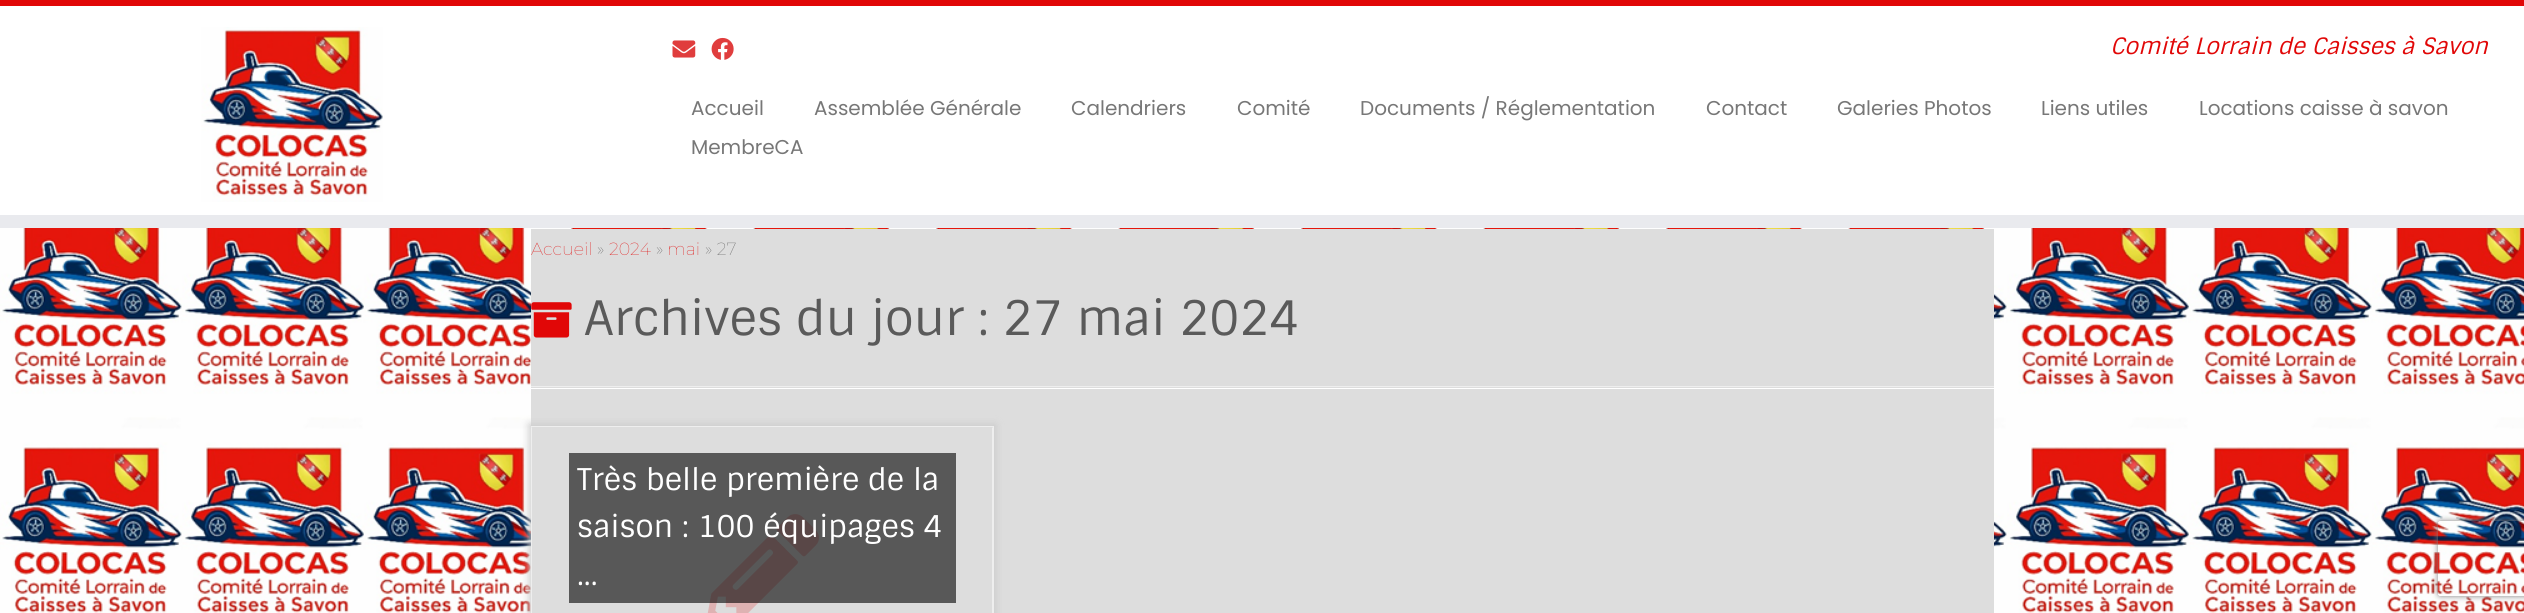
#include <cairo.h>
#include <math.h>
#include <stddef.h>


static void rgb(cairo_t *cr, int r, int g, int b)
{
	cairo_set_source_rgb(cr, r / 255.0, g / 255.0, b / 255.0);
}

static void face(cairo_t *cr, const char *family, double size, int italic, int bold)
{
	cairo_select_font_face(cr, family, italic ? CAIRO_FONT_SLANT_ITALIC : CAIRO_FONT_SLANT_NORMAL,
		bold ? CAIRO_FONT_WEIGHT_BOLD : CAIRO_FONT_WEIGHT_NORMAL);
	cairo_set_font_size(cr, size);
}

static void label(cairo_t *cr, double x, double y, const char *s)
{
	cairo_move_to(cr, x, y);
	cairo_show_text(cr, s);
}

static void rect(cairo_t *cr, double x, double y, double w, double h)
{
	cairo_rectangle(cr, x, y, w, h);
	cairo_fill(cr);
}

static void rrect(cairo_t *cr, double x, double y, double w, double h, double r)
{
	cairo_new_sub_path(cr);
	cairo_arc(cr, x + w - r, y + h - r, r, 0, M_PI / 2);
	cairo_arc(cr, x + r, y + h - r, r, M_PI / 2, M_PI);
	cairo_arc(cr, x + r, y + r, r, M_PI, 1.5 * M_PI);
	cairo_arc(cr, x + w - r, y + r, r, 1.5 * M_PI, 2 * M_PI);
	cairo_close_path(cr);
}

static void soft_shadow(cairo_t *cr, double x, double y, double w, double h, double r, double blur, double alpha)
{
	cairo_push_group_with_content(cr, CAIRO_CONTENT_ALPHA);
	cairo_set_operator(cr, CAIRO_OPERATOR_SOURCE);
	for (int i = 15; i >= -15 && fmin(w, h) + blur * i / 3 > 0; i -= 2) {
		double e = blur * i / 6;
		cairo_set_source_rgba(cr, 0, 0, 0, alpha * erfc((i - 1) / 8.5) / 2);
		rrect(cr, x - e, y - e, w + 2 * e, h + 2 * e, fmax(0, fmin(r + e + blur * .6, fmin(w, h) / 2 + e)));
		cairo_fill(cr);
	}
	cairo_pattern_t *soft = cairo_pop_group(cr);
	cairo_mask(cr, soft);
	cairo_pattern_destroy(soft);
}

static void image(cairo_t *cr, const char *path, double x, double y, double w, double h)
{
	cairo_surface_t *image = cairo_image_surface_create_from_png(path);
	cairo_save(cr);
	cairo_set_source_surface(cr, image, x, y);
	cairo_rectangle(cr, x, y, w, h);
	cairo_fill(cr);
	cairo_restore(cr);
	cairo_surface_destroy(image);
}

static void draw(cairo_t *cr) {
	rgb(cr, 255, 255, 255);
	cairo_paint(cr);
	image(cr, "image0.png", 0, 228, 2524, 385);
	rgb(cr, 225, 7, 7);
	rect(cr, 0, 0, 2524, 6);
	rgb(cr, 233, 234, 238);
	rect(cr, 0, 215, 2524, 13);
	image(cr, "image1.png", 201, 27, 182, 175);
	image(cr, "image2.png", 672, 40, 24, 18);
	image(cr, "image3.png", 711, 37, 23, 23);
	face(cr, "Sintony", 22.5, 1, 0);
	rgb(cr, 225, 7, 7);
	label(cr, 2110, 54, "Comité Lorrain de Caisses à Savon");
	face(cr, "Poppins", 20, 0, 0);
	rgb(cr, 119, 119, 119);
	label(cr, 691, 115, "Accueil");
	label(cr, 814, 115, "Assemblée Générale");
	label(cr, 1071, 115, "Calendriers");
	label(cr, 1237, 115, "Comité");
	label(cr, 1360, 115, "Documents / Réglementation");
	label(cr, 1706, 115, "Contact");
	label(cr, 1837, 115, "Galeries Photos");
	label(cr, 2041, 115, "Liens utiles");
	label(cr, 2199, 115, "Locations caisse à savon");
	label(cr, 691, 154, "MembreCA");
	rgb(cr, 221, 221, 221);
	rect(cr, 531, 229, 1463, 384);
	face(cr, "Montserrat Thin", 17.5, 0, 0);
	rgb(cr, 225, 7, 7);
	label(cr, 531, 255, "Accueil");
	rgb(cr, 90, 90, 90);
	label(cr, 597, 255, "»");
	rgb(cr, 225, 7, 7);
	label(cr, 609, 255, "2024");
	rgb(cr, 90, 90, 90);
	label(cr, 656, 255, "»");
	rgb(cr, 225, 7, 7);
	label(cr, 667, 255, "mai");
	rgb(cr, 90, 90, 90);
	label(cr, 705, 255, "» 27");
	image(cr, "image4.png", 531, 302, 41, 36);
	face(cr, "Sintony", 47.5, 0, 0);
	label(cr, 584, 335, "Archives du jour : 27 mai 2024");
	rgb(cr, 238, 238, 238);
	rect(cr, 531, 386, 1463, 1);
	rgb(cr, 255, 255, 255);
	rect(cr, 531, 388, 1463, 1);
	cairo_save(cr);
	cairo_set_fill_rule(cr, CAIRO_FILL_RULE_EVEN_ODD);
	cairo_new_path(cr);
	cairo_move_to(cr, 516, 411);
	cairo_line_to(cr, 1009, 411);
	cairo_line_to(cr, 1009, 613);
	cairo_line_to(cr, 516, 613);
	cairo_close_path(cr);
	cairo_move_to(cr, 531, 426);
	cairo_line_to(cr, 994, 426);
	cairo_line_to(cr, 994, 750);
	cairo_line_to(cr, 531, 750);
	cairo_close_path(cr);
	cairo_clip(cr);
	rgb(cr, 204, 204, 204);
	soft_shadow(cr, 529, 424, 467, 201, 0, 4, 1);
	cairo_restore(cr);
	rgb(cr, 238, 238, 238);
	rect(cr, 531, 426, 463, 1);
	cairo_new_path(cr);
	cairo_move_to(cr, 994, 426);
	cairo_line_to(cr, 994, 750);
	cairo_line_to(cr, 992, 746);
	cairo_line_to(cr, 992, 428);
	cairo_close_path(cr);
	cairo_fill(cr);
	cairo_new_path(cr);
	cairo_move_to(cr, 531, 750);
	cairo_line_to(cr, 531, 426);
	cairo_line_to(cr, 532, 428);
	cairo_line_to(cr, 532, 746);
	cairo_close_path(cr);
	cairo_fill(cr);
	image(cr, "image5.png", 707, 514, 112, 99);
	cairo_set_source_rgba(cr, 0, 0, 0, 0.6);
	rect(cr, 569, 453, 387, 150);
	face(cr, "Sintony", 30, 0, 0);
	rgb(cr, 255, 255, 255);
	label(cr, 577, 490, "Très belle première de la");
	label(cr, 577, 537, "saison : 100 équipages 4");
	label(cr, 577, 585, "...");
	cairo_save(cr);
	cairo_set_fill_rule(cr, CAIRO_FILL_RULE_EVEN_ODD);
	cairo_new_path(cr);
	cairo_move_to(cr, 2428, 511);
	cairo_line_to(cr, 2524, 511);
	cairo_line_to(cr, 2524, 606);
	cairo_line_to(cr, 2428, 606);
	cairo_close_path(cr);
	cairo_move_to(cr, 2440.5, 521);
	cairo_line_to(cr, 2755.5, 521);
	cairo_curve_to(cr, 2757, 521, 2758, 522, 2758, 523.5);
	cairo_line_to(cr, 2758, 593.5);
	cairo_curve_to(cr, 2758, 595, 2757, 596, 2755.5, 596);
	cairo_line_to(cr, 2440.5, 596);
	cairo_curve_to(cr, 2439, 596, 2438, 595, 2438, 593.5);
	cairo_line_to(cr, 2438, 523.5);
	cairo_curve_to(cr, 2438, 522, 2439, 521, 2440.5, 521);
	cairo_close_path(cr);
	cairo_clip(cr);
	rgb(cr, 128, 128, 128);
	soft_shadow(cr, 2438, 521, 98, 75, 2.5, 3, 1);
	cairo_restore(cr);
}

int main(void) {
	cairo_surface_t *surface = cairo_image_surface_create(CAIRO_FORMAT_RGB24, 2524, 613);
	cairo_t *cr = cairo_create(surface);
	cairo_font_options_t *options = cairo_font_options_create();
	cairo_font_options_set_hint_metrics(options, CAIRO_HINT_METRICS_OFF);
	cairo_font_options_set_hint_style(options, CAIRO_HINT_STYLE_NONE);
	cairo_set_font_options(cr, options);
	cairo_set_miter_limit(cr, 4);
	draw(cr);
	cairo_surface_write_to_png(surface, "render.png");
	cairo_font_options_destroy(options);
	cairo_destroy(cr);
	cairo_surface_destroy(surface);
	return 0;
}
